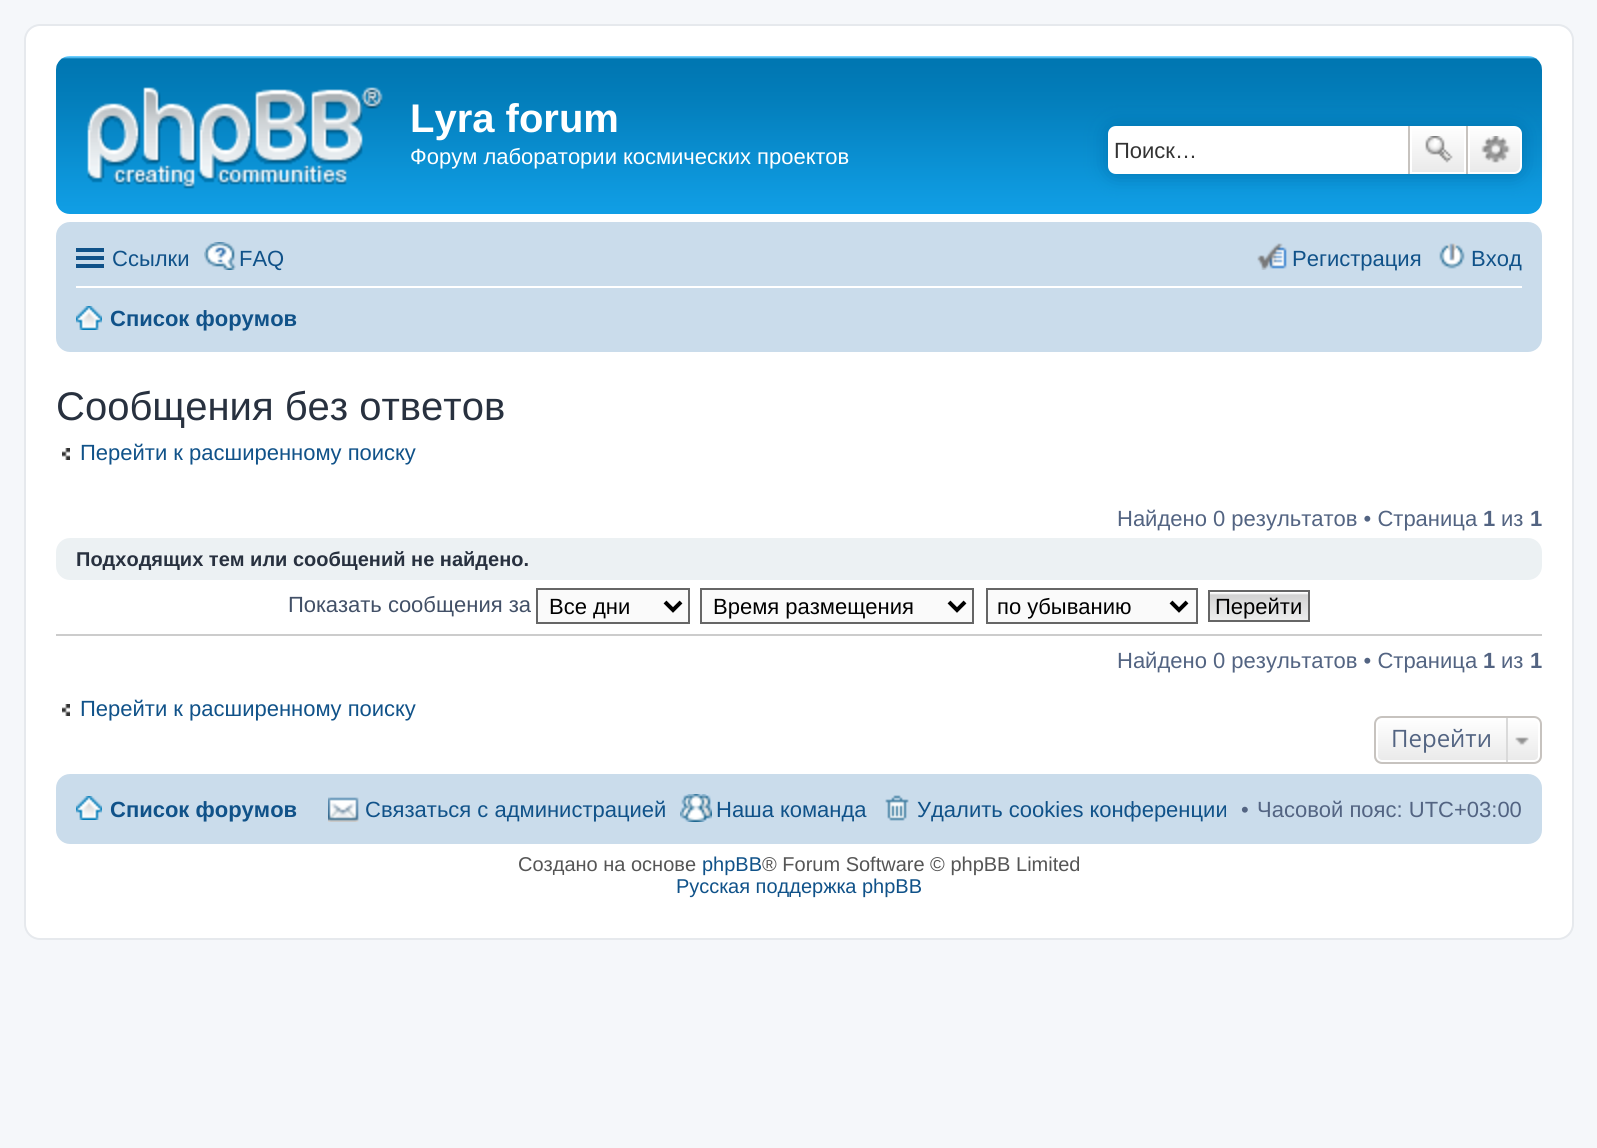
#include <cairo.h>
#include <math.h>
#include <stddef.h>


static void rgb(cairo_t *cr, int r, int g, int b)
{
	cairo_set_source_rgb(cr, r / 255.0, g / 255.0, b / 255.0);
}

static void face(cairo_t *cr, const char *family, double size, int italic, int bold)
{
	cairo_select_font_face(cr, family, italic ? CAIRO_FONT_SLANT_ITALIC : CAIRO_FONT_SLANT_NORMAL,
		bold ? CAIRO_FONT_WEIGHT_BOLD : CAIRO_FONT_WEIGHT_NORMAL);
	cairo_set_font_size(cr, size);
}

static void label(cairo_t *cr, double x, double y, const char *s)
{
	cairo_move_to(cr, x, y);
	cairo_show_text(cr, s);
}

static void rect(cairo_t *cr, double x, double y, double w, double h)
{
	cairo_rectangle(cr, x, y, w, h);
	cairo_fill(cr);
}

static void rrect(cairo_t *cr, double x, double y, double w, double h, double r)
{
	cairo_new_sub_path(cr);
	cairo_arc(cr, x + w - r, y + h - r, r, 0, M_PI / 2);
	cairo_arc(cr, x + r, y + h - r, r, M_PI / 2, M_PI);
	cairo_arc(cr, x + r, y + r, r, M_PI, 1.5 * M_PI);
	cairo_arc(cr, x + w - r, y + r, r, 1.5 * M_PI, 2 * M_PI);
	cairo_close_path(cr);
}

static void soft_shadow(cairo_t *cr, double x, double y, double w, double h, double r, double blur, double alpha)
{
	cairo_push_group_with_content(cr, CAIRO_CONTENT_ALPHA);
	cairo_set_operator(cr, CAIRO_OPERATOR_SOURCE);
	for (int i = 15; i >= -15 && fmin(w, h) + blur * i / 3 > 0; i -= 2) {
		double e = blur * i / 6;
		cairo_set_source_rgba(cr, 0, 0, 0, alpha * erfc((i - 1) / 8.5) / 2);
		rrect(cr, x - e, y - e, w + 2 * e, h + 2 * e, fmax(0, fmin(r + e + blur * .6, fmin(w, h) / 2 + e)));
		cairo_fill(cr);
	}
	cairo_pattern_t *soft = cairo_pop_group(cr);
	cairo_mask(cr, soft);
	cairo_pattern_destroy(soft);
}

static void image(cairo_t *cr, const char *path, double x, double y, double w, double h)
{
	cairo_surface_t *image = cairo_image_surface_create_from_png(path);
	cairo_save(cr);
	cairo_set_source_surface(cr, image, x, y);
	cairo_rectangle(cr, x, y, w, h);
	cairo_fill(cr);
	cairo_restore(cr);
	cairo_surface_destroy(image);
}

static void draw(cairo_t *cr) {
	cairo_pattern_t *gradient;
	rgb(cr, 245, 247, 250);
	cairo_paint(cr);
	rgb(cr, 255, 255, 255);
	rrect(cr, 25, 25, 1548, 914, 15);
	cairo_fill_preserve(cr);
	rgb(cr, 230, 233, 237);
	cairo_stroke(cr);
	image(cr, "image0.png", 56, 56, 1486, 158);
	image(cr, "image1.png", 87, 87, 296, 102);
	face(cr, "Liberation Sans", 40, 0, 1);
	rgb(cr, 255, 255, 255);
	label(cr, 410, 132, "Lyra forum");
	face(cr, "Liberation Sans", 22, 0, 0);
	label(cr, 410, 164, "Форум лаборатории космических проектов");
	rgb(cr, 0, 117, 176);
	soft_shadow(cr, 1108, 126, 414, 48, 8, 10, 1);
	rgb(cr, 255, 255, 255);
	cairo_new_path(cr);
	cairo_move_to(cr, 1116, 126);
	cairo_line_to(cr, 1408, 126);
	cairo_line_to(cr, 1408, 174);
	cairo_line_to(cr, 1116, 174);
	cairo_curve_to(cr, 1111.5, 174, 1108, 170.5, 1108, 166);
	cairo_line_to(cr, 1108, 134);
	cairo_curve_to(cr, 1108, 129.5, 1111.5, 126, 1116, 126);
	cairo_close_path(cr);
	cairo_fill(cr);
	rgb(cr, 51, 51, 51);
	label(cr, 1114, 158, "Поиск…");
	gradient = cairo_pattern_create_linear(1438, 126, 1438, 174);
	cairo_pattern_add_color_stop_rgba(gradient, 0, 1, 1, 1, 1);
	cairo_pattern_add_color_stop_rgba(gradient, 1, 0.914, 0.914, 0.914, 1);
	cairo_set_source(cr, gradient);
	cairo_pattern_destroy(gradient);
	rect(cr, 1412, 128, 52, 44);
	cairo_rectangle(cr, 1411, 127, 54, 46);
	rgb(cr, 255, 255, 255);
	cairo_stroke(cr);
	rgb(cr, 199, 195, 191);
	rect(cr, 1466, 126, 2, 48);
	rect(cr, 1408, 126, 2, 48);
	image(cr, "image2.png", 1425, 136, 28, 27);
	gradient = cairo_pattern_create_linear(1495, 126, 1495, 174);
	cairo_pattern_add_color_stop_rgba(gradient, 0, 1, 1, 1, 1);
	cairo_pattern_add_color_stop_rgba(gradient, 1, 0.914, 0.914, 0.914, 1);
	cairo_set_source(cr, gradient);
	cairo_pattern_destroy(gradient);
	cairo_new_path(cr);
	cairo_move_to(cr, 1469, 127);
	cairo_line_to(cr, 1514, 127);
	cairo_curve_to(cr, 1518, 127, 1521, 130, 1521, 134);
	cairo_line_to(cr, 1521, 166);
	cairo_curve_to(cr, 1521, 170, 1518, 173, 1514, 173);
	cairo_line_to(cr, 1469, 173);
	cairo_close_path(cr);
	cairo_fill_preserve(cr);
	rgb(cr, 255, 255, 255);
	cairo_stroke(cr);
	image(cr, "image3.png", 1481, 136, 30, 27);
	rgb(cr, 202, 220, 235);
	rrect(cr, 56, 222, 1486, 130, 14);
	cairo_fill(cr);
	rgb(cr, 16, 82, 137);
	rect(cr, 76, 248, 28, 4);
	rect(cr, 76, 256, 28, 4);
	rect(cr, 76, 264, 28, 4);
	label(cr, 112, 266, "Ссылки");
	image(cr, "image4.png", 204, 242, 32, 28);
	label(cr, 239, 266, "FAQ");
	image(cr, "image5.png", 1257, 243, 30, 27);
	label(cr, 1292, 266, "Регистрация");
	image(cr, "image6.png", 1439, 243, 26, 26);
	label(cr, 1471, 266, "Вход");
	rgb(cr, 255, 255, 255);
	rect(cr, 76, 286, 1446, 2);
	image(cr, "image7.png", 76, 306, 26, 24);
	face(cr, "Liberation Sans", 22, 0, 1);
	rgb(cr, 16, 82, 137);
	label(cr, 110, 326, "Список форумов");
	face(cr, "Liberation Sans", 40, 0, 0);
	rgb(cr, 40, 49, 63);
	label(cr, 56, 420, "Сообщения без ответов");
	image(cr, "image8.png", 62, 448, 8, 12);
	face(cr, "Liberation Sans", 22, 0, 0);
	rgb(cr, 16, 82, 137);
	label(cr, 80, 460, "Перейти к расширенному поиску");
	rgb(cr, 83, 100, 130);
	label(cr, 1117, 526, "Найдено 0 результатов • Страница");
	face(cr, "Liberation Sans", 22, 0, 1);
	label(cr, 1483, 526, "1");
	face(cr, "Liberation Sans", 22, 0, 0);
	label(cr, 1501, 526, "из");
	face(cr, "Liberation Sans", 22, 0, 1);
	label(cr, 1530, 526, "1");
	rgb(cr, 236, 241, 243);
	rrect(cr, 56, 538, 1486, 42, 14);
	cairo_fill(cr);
	face(cr, "Liberation Sans", 20, 0, 1);
	rgb(cr, 40, 49, 63);
	label(cr, 76, 566, "Подходящих тем или сообщений не найдено.");
	face(cr, "Liberation Sans", 22, 0, 0);
	rgb(cr, 66, 80, 103);
	label(cr, 288, 612, "Показать сообщения за");
	rgb(cr, 250, 250, 250);
	cairo_rectangle(cr, 537, 589, 152, 34);
	cairo_fill_preserve(cr);
	rgb(cr, 102, 102, 102);
	cairo_stroke(cr);
	cairo_new_path(cr);
	cairo_move_to(cr, 665, 602);
	cairo_line_to(cr, 673, 610);
	cairo_line_to(cr, 681, 602);
	rgb(cr, 0, 0, 0);
	cairo_set_line_width(cr, 4);
	cairo_stroke(cr);
	label(cr, 549, 614, "Все дни");
	rgb(cr, 250, 250, 250);
	cairo_rectangle(cr, 701, 589, 272, 34);
	cairo_fill_preserve(cr);
	rgb(cr, 102, 102, 102);
	cairo_set_line_width(cr, 2);
	cairo_stroke(cr);
	cairo_new_path(cr);
	cairo_move_to(cr, 949, 602);
	cairo_line_to(cr, 957, 610);
	cairo_line_to(cr, 965, 602);
	rgb(cr, 0, 0, 0);
	cairo_set_line_width(cr, 4);
	cairo_stroke(cr);
	label(cr, 713, 614, "Время размещения");
	rgb(cr, 250, 250, 250);
	cairo_rectangle(cr, 987, 589, 210, 34);
	cairo_fill_preserve(cr);
	rgb(cr, 102, 102, 102);
	cairo_set_line_width(cr, 2);
	cairo_stroke(cr);
	cairo_new_path(cr);
	cairo_move_to(cr, 1171, 602);
	cairo_line_to(cr, 1179, 610);
	cairo_line_to(cr, 1187, 602);
	rgb(cr, 0, 0, 0);
	cairo_set_line_width(cr, 4);
	cairo_stroke(cr);
	label(cr, 997, 614, "по убыванию");
	image(cr, "image9.png", 1210, 592, 98, 28);
	cairo_rectangle(cr, 1209, 591, 100, 30);
	rgb(cr, 102, 102, 102);
	cairo_set_line_width(cr, 2);
	cairo_stroke(cr);
	rgb(cr, 0, 0, 0);
	label(cr, 1215, 614, "Перейти");
	rgb(cr, 204, 204, 204);
	rect(cr, 56, 634, 1486, 2);
	rgb(cr, 83, 100, 130);
	label(cr, 1117, 668, "Найдено 0 результатов • Страница");
	face(cr, "Liberation Sans", 22, 0, 1);
	label(cr, 1483, 668, "1");
	face(cr, "Liberation Sans", 22, 0, 0);
	label(cr, 1501, 668, "из");
	face(cr, "Liberation Sans", 22, 0, 1);
	label(cr, 1530, 668, "1");
	image(cr, "image8.png", 62, 704, 8, 12);
	face(cr, "Liberation Sans", 22, 0, 0);
	rgb(cr, 16, 82, 137);
	label(cr, 80, 716, "Перейти к расширенному поиску");
	cairo_save(cr);
	rrect(cr, 1374, 716, 168, 48, 8);
	cairo_clip(cr);
	gradient = cairo_pattern_create_linear(1458, 718, 1458, 762);
	cairo_pattern_add_color_stop_rgba(gradient, 0, 1, 1, 1, 1);
	cairo_pattern_add_color_stop_rgba(gradient, 1, 0.914, 0.914, 0.914, 1);
	cairo_set_source(cr, gradient);
	cairo_pattern_destroy(gradient);
	rect(cr, 1374, 718, 168, 44);
	cairo_restore(cr);
	rrect(cr, 1377, 719, 162, 42, 5);
	rgb(cr, 255, 255, 255);
	cairo_stroke(cr);
	rrect(cr, 1375, 717, 166, 46, 7);
	rgb(cr, 199, 195, 191);
	cairo_stroke(cr);
	face(cr, "Open Sans", 24, 0, 0);
	rgb(cr, 83, 100, 130);
	label(cr, 1391, 747, "Перейти");
	image(cr, "image10.png", 1515, 737, 14, 9);
	rgb(cr, 218, 218, 218);
	rect(cr, 1506, 718, 2, 44);
	rgb(cr, 202, 220, 235);
	rrect(cr, 56, 774, 1486, 70, 14);
	cairo_fill(cr);
	image(cr, "image7.png", 76, 796, 26, 24);
	face(cr, "Liberation Sans", 22, 0, 1);
	rgb(cr, 16, 82, 137);
	label(cr, 110, 817, "Список форумов");
	image(cr, "image11.png", 328, 797, 31, 25);
	face(cr, "Liberation Sans", 22, 0, 0);
	label(cr, 365, 817, "Связаться с администрацией");
	image(cr, "image12.png", 680, 794, 32, 28);
	label(cr, 716, 817, "Наша команда");
	image(cr, "image13.png", 885, 795, 24, 26);
	label(cr, 917, 817, "Удалить cookies конференции");
	rgb(cr, 83, 100, 130);
	label(cr, 1241, 817, "•");
	label(cr, 1257, 817, "Часовой пояс: UTC+03:00");
	face(cr, "Liberation Sans", 20, 0, 0);
	rgb(cr, 85, 85, 85);
	label(cr, 518, 871, "Создано на основе");
	rgb(cr, 16, 82, 137);
	label(cr, 702, 871, "phpBB");
	rgb(cr, 85, 85, 85);
	label(cr, 762, 871, "® Forum Software © phpBB Limited");
	rgb(cr, 16, 82, 137);
	label(cr, 676, 893, "Русская поддержка phpBB");
}

int main(void) {
	cairo_surface_t *surface = cairo_image_surface_create(CAIRO_FORMAT_RGB24, 1597, 1148);
	cairo_t *cr = cairo_create(surface);
	cairo_font_options_t *options = cairo_font_options_create();
	cairo_font_options_set_hint_metrics(options, CAIRO_HINT_METRICS_OFF);
	cairo_font_options_set_hint_style(options, CAIRO_HINT_STYLE_NONE);
	cairo_set_font_options(cr, options);
	cairo_set_miter_limit(cr, 4);
	draw(cr);
	cairo_surface_write_to_png(surface, "render.png");
	cairo_font_options_destroy(options);
	cairo_destroy(cr);
	cairo_surface_destroy(surface);
	return 0;
}
